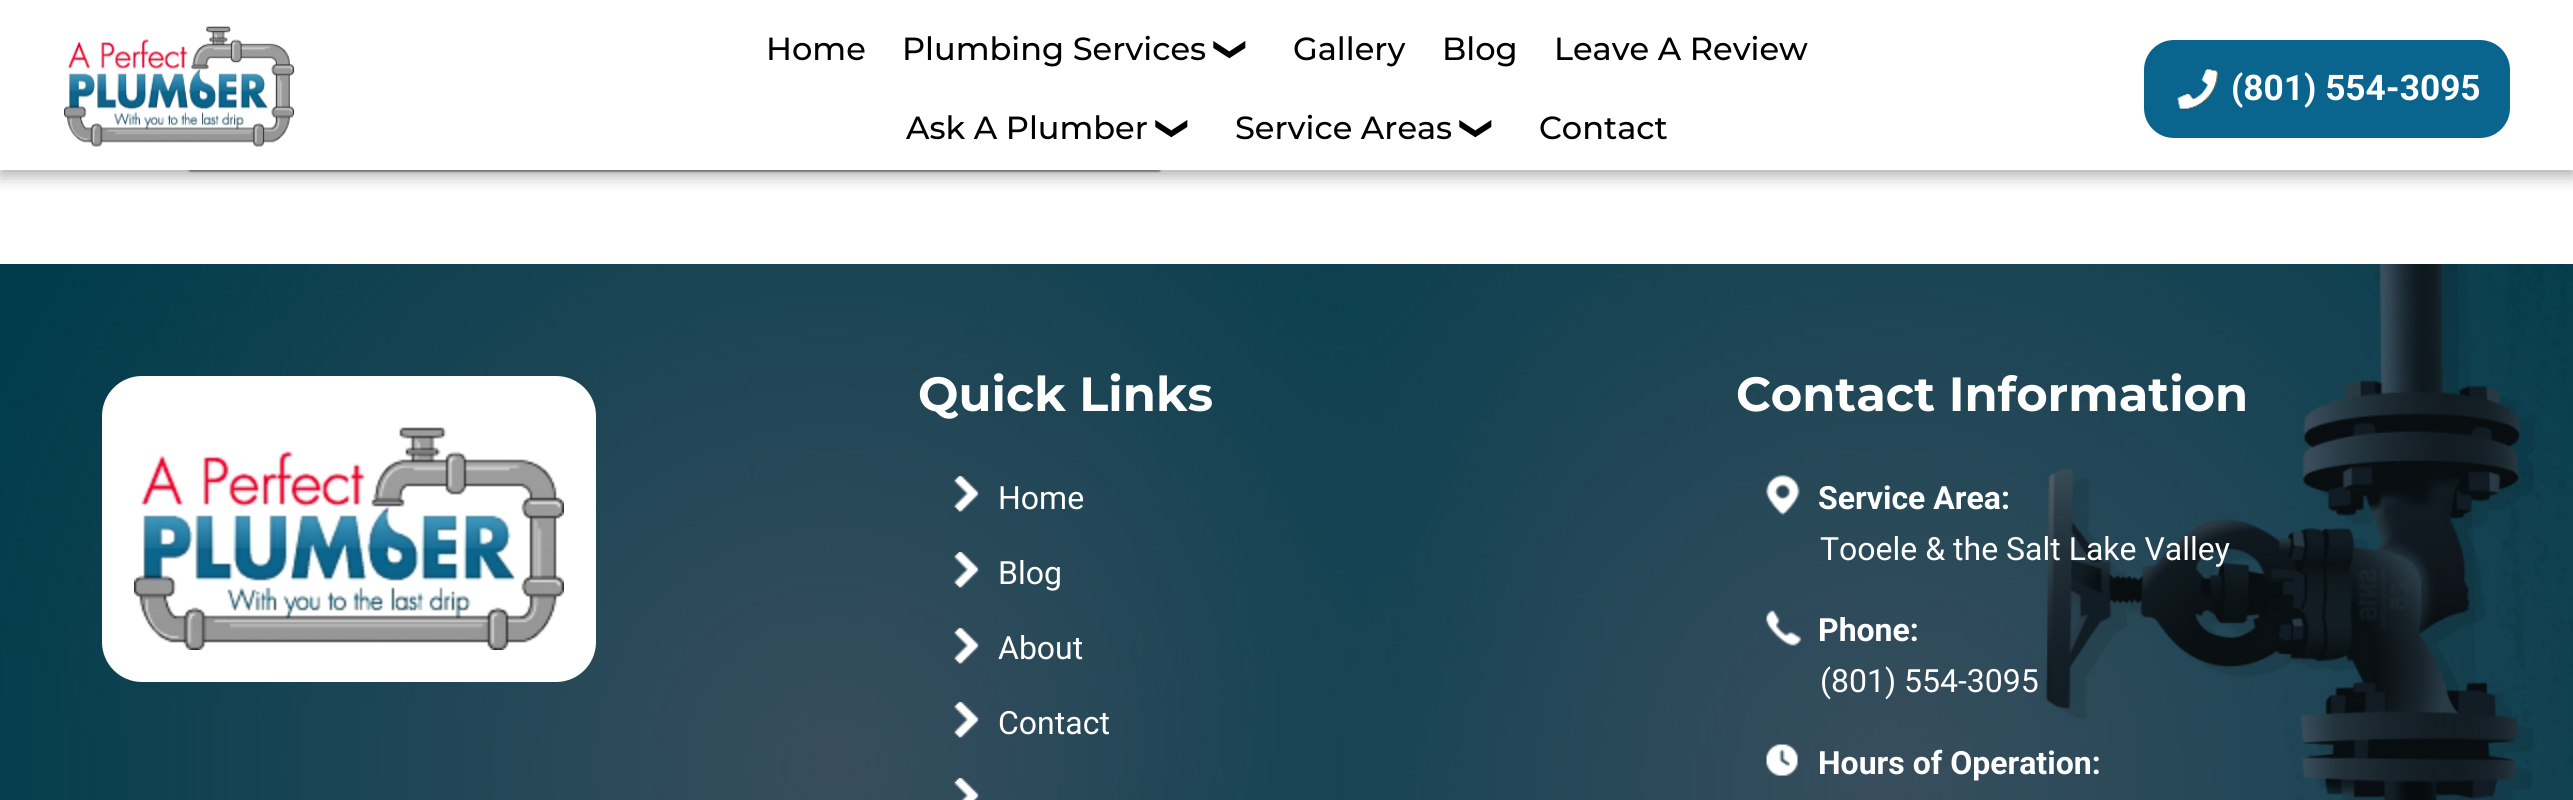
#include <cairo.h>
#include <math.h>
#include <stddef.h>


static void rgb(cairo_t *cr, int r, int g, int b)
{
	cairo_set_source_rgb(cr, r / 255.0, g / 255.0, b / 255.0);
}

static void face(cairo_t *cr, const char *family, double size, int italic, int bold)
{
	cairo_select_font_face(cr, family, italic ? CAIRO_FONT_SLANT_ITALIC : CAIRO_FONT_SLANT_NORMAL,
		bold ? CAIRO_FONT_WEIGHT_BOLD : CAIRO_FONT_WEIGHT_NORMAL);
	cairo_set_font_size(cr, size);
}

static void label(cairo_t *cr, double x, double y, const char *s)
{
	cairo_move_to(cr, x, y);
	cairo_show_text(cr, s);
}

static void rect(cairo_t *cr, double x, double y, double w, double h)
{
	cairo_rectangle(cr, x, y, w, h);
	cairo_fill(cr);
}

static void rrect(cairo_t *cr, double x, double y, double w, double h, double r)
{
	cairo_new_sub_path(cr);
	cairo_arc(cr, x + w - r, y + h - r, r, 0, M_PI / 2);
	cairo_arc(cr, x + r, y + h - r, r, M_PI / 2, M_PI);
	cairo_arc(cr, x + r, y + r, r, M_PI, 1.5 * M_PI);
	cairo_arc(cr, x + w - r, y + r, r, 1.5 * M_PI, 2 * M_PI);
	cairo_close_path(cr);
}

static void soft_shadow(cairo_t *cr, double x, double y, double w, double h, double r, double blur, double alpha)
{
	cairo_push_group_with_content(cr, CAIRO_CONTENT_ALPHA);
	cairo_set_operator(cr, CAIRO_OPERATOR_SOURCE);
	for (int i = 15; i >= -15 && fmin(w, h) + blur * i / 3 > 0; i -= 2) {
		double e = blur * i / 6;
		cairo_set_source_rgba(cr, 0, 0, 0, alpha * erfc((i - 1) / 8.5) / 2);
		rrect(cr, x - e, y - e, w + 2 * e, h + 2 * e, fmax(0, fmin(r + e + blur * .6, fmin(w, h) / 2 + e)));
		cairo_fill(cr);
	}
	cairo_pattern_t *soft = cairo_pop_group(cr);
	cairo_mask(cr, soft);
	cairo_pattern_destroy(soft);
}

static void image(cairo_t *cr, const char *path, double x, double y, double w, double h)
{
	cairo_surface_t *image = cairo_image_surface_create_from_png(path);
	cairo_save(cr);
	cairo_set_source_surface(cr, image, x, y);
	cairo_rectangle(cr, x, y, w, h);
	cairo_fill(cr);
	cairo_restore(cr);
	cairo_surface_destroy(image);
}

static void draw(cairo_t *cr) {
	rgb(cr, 255, 255, 255);
	cairo_paint(cr);
	image(cr, "image2.png", 187, 170, 976, 3);
	rgb(cr, 0, 0, 0);
	soft_shadow(cr, 0, 6, 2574, 170, 0, 8, 0.32);
	rgb(cr, 255, 255, 255);
	rect(cr, 0, 0, 2573, 170);
	image(cr, "image0.png", 64, 26, 231, 121);
	face(cr, "Montserrat Medium", 32, 0, 0);
	rgb(cr, 0, 0, 0);
	label(cr, 766, 60, "Home");
	label(cr, 902, 60, "Plumbing Services");
	face(cr, "DejaVu Sans", 32, 0, 0);
	cairo_save(cr);
	cairo_translate(cr, 1221, 36);
	cairo_rotate(cr, 90 * M_PI / 180);
	label(cr, 0, 0, "❯");
	cairo_restore(cr);
	face(cr, "Montserrat Medium", 32, 0, 0);
	label(cr, 1293, 60, "Gallery");
	label(cr, 1442, 60, "Blog");
	label(cr, 1554, 60, "Leave A Review");
	label(cr, 906, 139, "Ask A Plumber");
	face(cr, "DejaVu Sans", 32, 0, 0);
	cairo_save(cr);
	cairo_translate(cr, 1163, 115);
	cairo_rotate(cr, 90 * M_PI / 180);
	label(cr, 0, 0, "❯");
	cairo_restore(cr);
	face(cr, "Montserrat Medium", 32, 0, 0);
	label(cr, 1235, 139, "Service Areas");
	face(cr, "DejaVu Sans", 32, 0, 0);
	cairo_save(cr);
	cairo_translate(cr, 1467, 115);
	cairo_rotate(cr, 90 * M_PI / 180);
	label(cr, 0, 0, "❯");
	cairo_restore(cr);
	face(cr, "Montserrat Medium", 32, 0, 0);
	label(cr, 1539, 139, "Contact");
	rgb(cr, 10, 101, 142);
	rrect(cr, 2144, 40, 366, 98, 30);
	cairo_fill(cr);
	image(cr, "image1.png", 2177, 68, 41, 42);
	face(cr, "Roboto", 35.25, 0, 1);
	rgb(cr, 255, 255, 255);
	label(cr, 2231, 100, "(801) 554-3095");
	image(cr, "image3.png", 0, 264, 2573, 536);
	rrect(cr, 102, 376, 494, 306, 40);
	cairo_fill(cr);
	image(cr, "image4.png", 134, 427, 430, 223);
	face(cr, "Montserrat", 48, 0, 1);
	label(cr, 918, 411, "Quick Links");
	image(cr, "image5.png", 954, 476, 25, 36);
	face(cr, "Roboto", 32, 0, 0);
	label(cr, 998, 509, "Home");
	image(cr, "image6.png", 954, 552, 25, 36);
	label(cr, 998, 584, "Blog");
	image(cr, "image7.png", 954, 628, 25, 36);
	label(cr, 998, 659, "About");
	image(cr, "image8.png", 954, 702, 25, 36);
	label(cr, 998, 734, "Contact");
	image(cr, "image9.png", 954, 778, 25, 22);
	face(cr, "Montserrat", 48, 0, 1);
	label(cr, 1736, 411, "Contact Information");
	image(cr, "image10.png", 1766, 475, 34, 40);
	face(cr, "Roboto", 32, 0, 1);
	label(cr, 1818, 509, "Service Area:");
	face(cr, "Roboto", 32, 0, 0);
	label(cr, 1820, 560, "Tooele & the Salt Lake Valley");
	image(cr, "image11.png", 1766, 610, 36, 36);
	face(cr, "Roboto", 32, 0, 1);
	label(cr, 1818, 641, "Phone:");
	face(cr, "Roboto", 32, 0, 0);
	label(cr, 1820, 692, "(801) 554-3095");
	image(cr, "image12.png", 1766, 744, 32, 32);
	face(cr, "Roboto", 32, 0, 1);
	label(cr, 1818, 774, "Hours of Operation:");
}

int main(void) {
	cairo_surface_t *surface = cairo_image_surface_create(CAIRO_FORMAT_RGB24, 2573, 800);
	cairo_t *cr = cairo_create(surface);
	cairo_font_options_t *options = cairo_font_options_create();
	cairo_font_options_set_hint_metrics(options, CAIRO_HINT_METRICS_OFF);
	cairo_font_options_set_hint_style(options, CAIRO_HINT_STYLE_NONE);
	cairo_set_font_options(cr, options);
	cairo_set_miter_limit(cr, 4);
	draw(cr);
	cairo_surface_write_to_png(surface, "render.png");
	cairo_font_options_destroy(options);
	cairo_destroy(cr);
	cairo_surface_destroy(surface);
	return 0;
}
